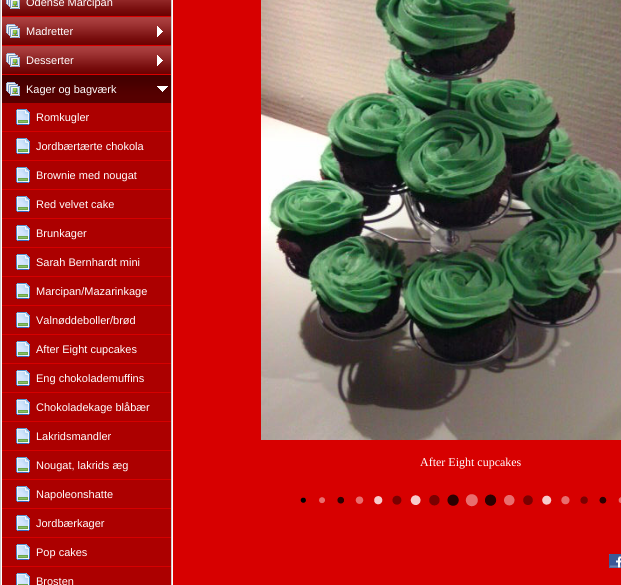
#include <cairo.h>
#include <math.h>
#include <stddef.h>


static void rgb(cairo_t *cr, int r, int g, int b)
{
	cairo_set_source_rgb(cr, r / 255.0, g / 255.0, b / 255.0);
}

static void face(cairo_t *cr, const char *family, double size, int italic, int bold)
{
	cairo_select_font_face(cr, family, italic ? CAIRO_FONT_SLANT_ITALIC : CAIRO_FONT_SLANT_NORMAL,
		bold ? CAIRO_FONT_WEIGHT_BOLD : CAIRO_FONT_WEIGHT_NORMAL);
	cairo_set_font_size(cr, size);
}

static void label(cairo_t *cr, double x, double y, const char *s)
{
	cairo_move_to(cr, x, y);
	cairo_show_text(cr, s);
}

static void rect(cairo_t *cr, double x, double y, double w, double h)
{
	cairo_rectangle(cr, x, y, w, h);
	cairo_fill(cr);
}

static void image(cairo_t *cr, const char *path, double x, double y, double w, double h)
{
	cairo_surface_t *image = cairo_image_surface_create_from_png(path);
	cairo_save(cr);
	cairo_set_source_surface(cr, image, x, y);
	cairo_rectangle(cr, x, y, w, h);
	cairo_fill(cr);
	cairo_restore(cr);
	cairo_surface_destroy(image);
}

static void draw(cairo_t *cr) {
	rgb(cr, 255, 255, 255);
	cairo_paint(cr);
	rgb(cr, 204, 204, 204);
	rect(cr, 0, 0, 1, 585);
	rgb(cr, 215, 0, 0);
	rect(cr, 2, 0, 169, 567);
	image(cr, "image0.png", 2, 0, 169, 16);
	image(cr, "image1.png", 6, 0, 14, 9);
	face(cr, "Liberation Sans", 11, 0, 0);
	rgb(cr, 255, 255, 255);
	label(cr, 26, 6, "Odense Marcipan");
	image(cr, "image2.png", 2, 17, 169, 28);
	image(cr, "image3.png", 6, 24, 14, 14);
	image(cr, "image4.png", 157, 26, 6, 11);
	label(cr, 26, 35, "Madretter");
	image(cr, "image2.png", 2, 46, 169, 28);
	image(cr, "image3.png", 6, 53, 14, 14);
	image(cr, "image4.png", 157, 55, 6, 11);
	label(cr, 26, 64, "Desserter");
	image(cr, "image5.png", 2, 75, 169, 28);
	image(cr, "image6.png", 6, 82, 14, 14);
	image(cr, "image7.png", 157, 86, 11, 6);
	label(cr, 26, 93, "Kager og bagværk");
	rgb(cr, 172, 0, 0);
	rect(cr, 2, 103, 169, 28);
	image(cr, "image8.png", 16, 109, 14, 16);
	rgb(cr, 255, 255, 255);
	label(cr, 36, 121, "Romkugler");
	rgb(cr, 172, 0, 0);
	rect(cr, 2, 132, 169, 28);
	image(cr, "image8.png", 16, 138, 14, 16);
	rgb(cr, 255, 255, 255);
	label(cr, 36, 150, "Jordbærtærte chokola");
	rgb(cr, 172, 0, 0);
	rect(cr, 2, 161, 169, 28);
	image(cr, "image8.png", 16, 167, 14, 16);
	rgb(cr, 255, 255, 255);
	label(cr, 36, 179, "Brownie med nougat");
	rgb(cr, 172, 0, 0);
	rect(cr, 2, 190, 169, 28);
	image(cr, "image8.png", 16, 196, 14, 16);
	rgb(cr, 255, 255, 255);
	label(cr, 36, 208, "Red velvet cake");
	rgb(cr, 172, 0, 0);
	rect(cr, 2, 219, 169, 28);
	image(cr, "image8.png", 16, 225, 14, 16);
	rgb(cr, 255, 255, 255);
	label(cr, 36, 237, "Brunkager");
	rgb(cr, 172, 0, 0);
	rect(cr, 2, 248, 169, 28);
	image(cr, "image8.png", 16, 254, 14, 16);
	rgb(cr, 255, 255, 255);
	label(cr, 36, 266, "Sarah Bernhardt mini");
	rgb(cr, 172, 0, 0);
	rect(cr, 2, 277, 169, 28);
	image(cr, "image8.png", 16, 283, 14, 16);
	rgb(cr, 255, 255, 255);
	label(cr, 36, 295, "Marcipan/Mazarinkage");
	rgb(cr, 172, 0, 0);
	rect(cr, 2, 306, 169, 28);
	image(cr, "image8.png", 16, 312, 14, 16);
	rgb(cr, 255, 255, 255);
	label(cr, 36, 324, "Valnøddeboller/brød");
	rgb(cr, 172, 0, 0);
	rect(cr, 2, 335, 169, 28);
	image(cr, "image8.png", 16, 341, 14, 16);
	rgb(cr, 255, 255, 255);
	label(cr, 36, 353, "After Eight cupcakes");
	rgb(cr, 172, 0, 0);
	rect(cr, 2, 364, 169, 28);
	image(cr, "image8.png", 16, 370, 14, 16);
	rgb(cr, 255, 255, 255);
	label(cr, 36, 382, "Eng chokolademuffins");
	rgb(cr, 172, 0, 0);
	rect(cr, 2, 393, 169, 28);
	image(cr, "image8.png", 16, 399, 14, 16);
	rgb(cr, 255, 255, 255);
	label(cr, 36, 411, "Chokoladekage blåbær");
	rgb(cr, 172, 0, 0);
	rect(cr, 2, 422, 169, 28);
	image(cr, "image8.png", 16, 428, 14, 16);
	rgb(cr, 255, 255, 255);
	label(cr, 36, 440, "Lakridsmandler");
	rgb(cr, 172, 0, 0);
	rect(cr, 2, 451, 169, 28);
	image(cr, "image8.png", 16, 457, 14, 16);
	rgb(cr, 255, 255, 255);
	label(cr, 36, 469, "Nougat, lakrids æg");
	rgb(cr, 172, 0, 0);
	rect(cr, 2, 480, 169, 28);
	image(cr, "image8.png", 16, 486, 14, 16);
	rgb(cr, 255, 255, 255);
	label(cr, 36, 498, "Napoleonshatte");
	rgb(cr, 172, 0, 0);
	rect(cr, 2, 509, 169, 28);
	image(cr, "image8.png", 16, 515, 14, 16);
	rgb(cr, 255, 255, 255);
	label(cr, 36, 527, "Jordbærkager");
	rgb(cr, 172, 0, 0);
	rect(cr, 2, 538, 169, 28);
	image(cr, "image8.png", 16, 544, 14, 16);
	rgb(cr, 255, 255, 255);
	label(cr, 36, 556, "Pop cakes");
	rgb(cr, 172, 0, 0);
	rect(cr, 2, 567, 169, 18);
	image(cr, "image9.png", 16, 573, 14, 12);
	rgb(cr, 255, 255, 255);
	label(cr, 36, 585, "Brosten");
	rgb(cr, 204, 204, 204);
	rect(cr, 171, 0, 1, 585);
	rgb(cr, 215, 0, 0);
	rect(cr, 173, 0, 448, 585);
	image(cr, "image10.png", 261, 0, 360, 440);
	face(cr, "Liberation Serif", 12, 0, 0);
	rgb(cr, 255, 255, 255);
	label(cr, 420, 466, "After Eight cupcakes");
	image(cr, "image11.png", 300, 494, 321, 13);
	image(cr, "image12.png", 609, 554, 12, 14);
}

int main(void) {
	cairo_surface_t *surface = cairo_image_surface_create(CAIRO_FORMAT_RGB24, 621, 585);
	cairo_t *cr = cairo_create(surface);
	cairo_font_options_t *options = cairo_font_options_create();
	cairo_font_options_set_hint_metrics(options, CAIRO_HINT_METRICS_OFF);
	cairo_font_options_set_hint_style(options, CAIRO_HINT_STYLE_NONE);
	cairo_set_font_options(cr, options);
	cairo_set_miter_limit(cr, 4);
	draw(cr);
	cairo_surface_write_to_png(surface, "render.png");
	cairo_font_options_destroy(options);
	cairo_destroy(cr);
	cairo_surface_destroy(surface);
	return 0;
}
